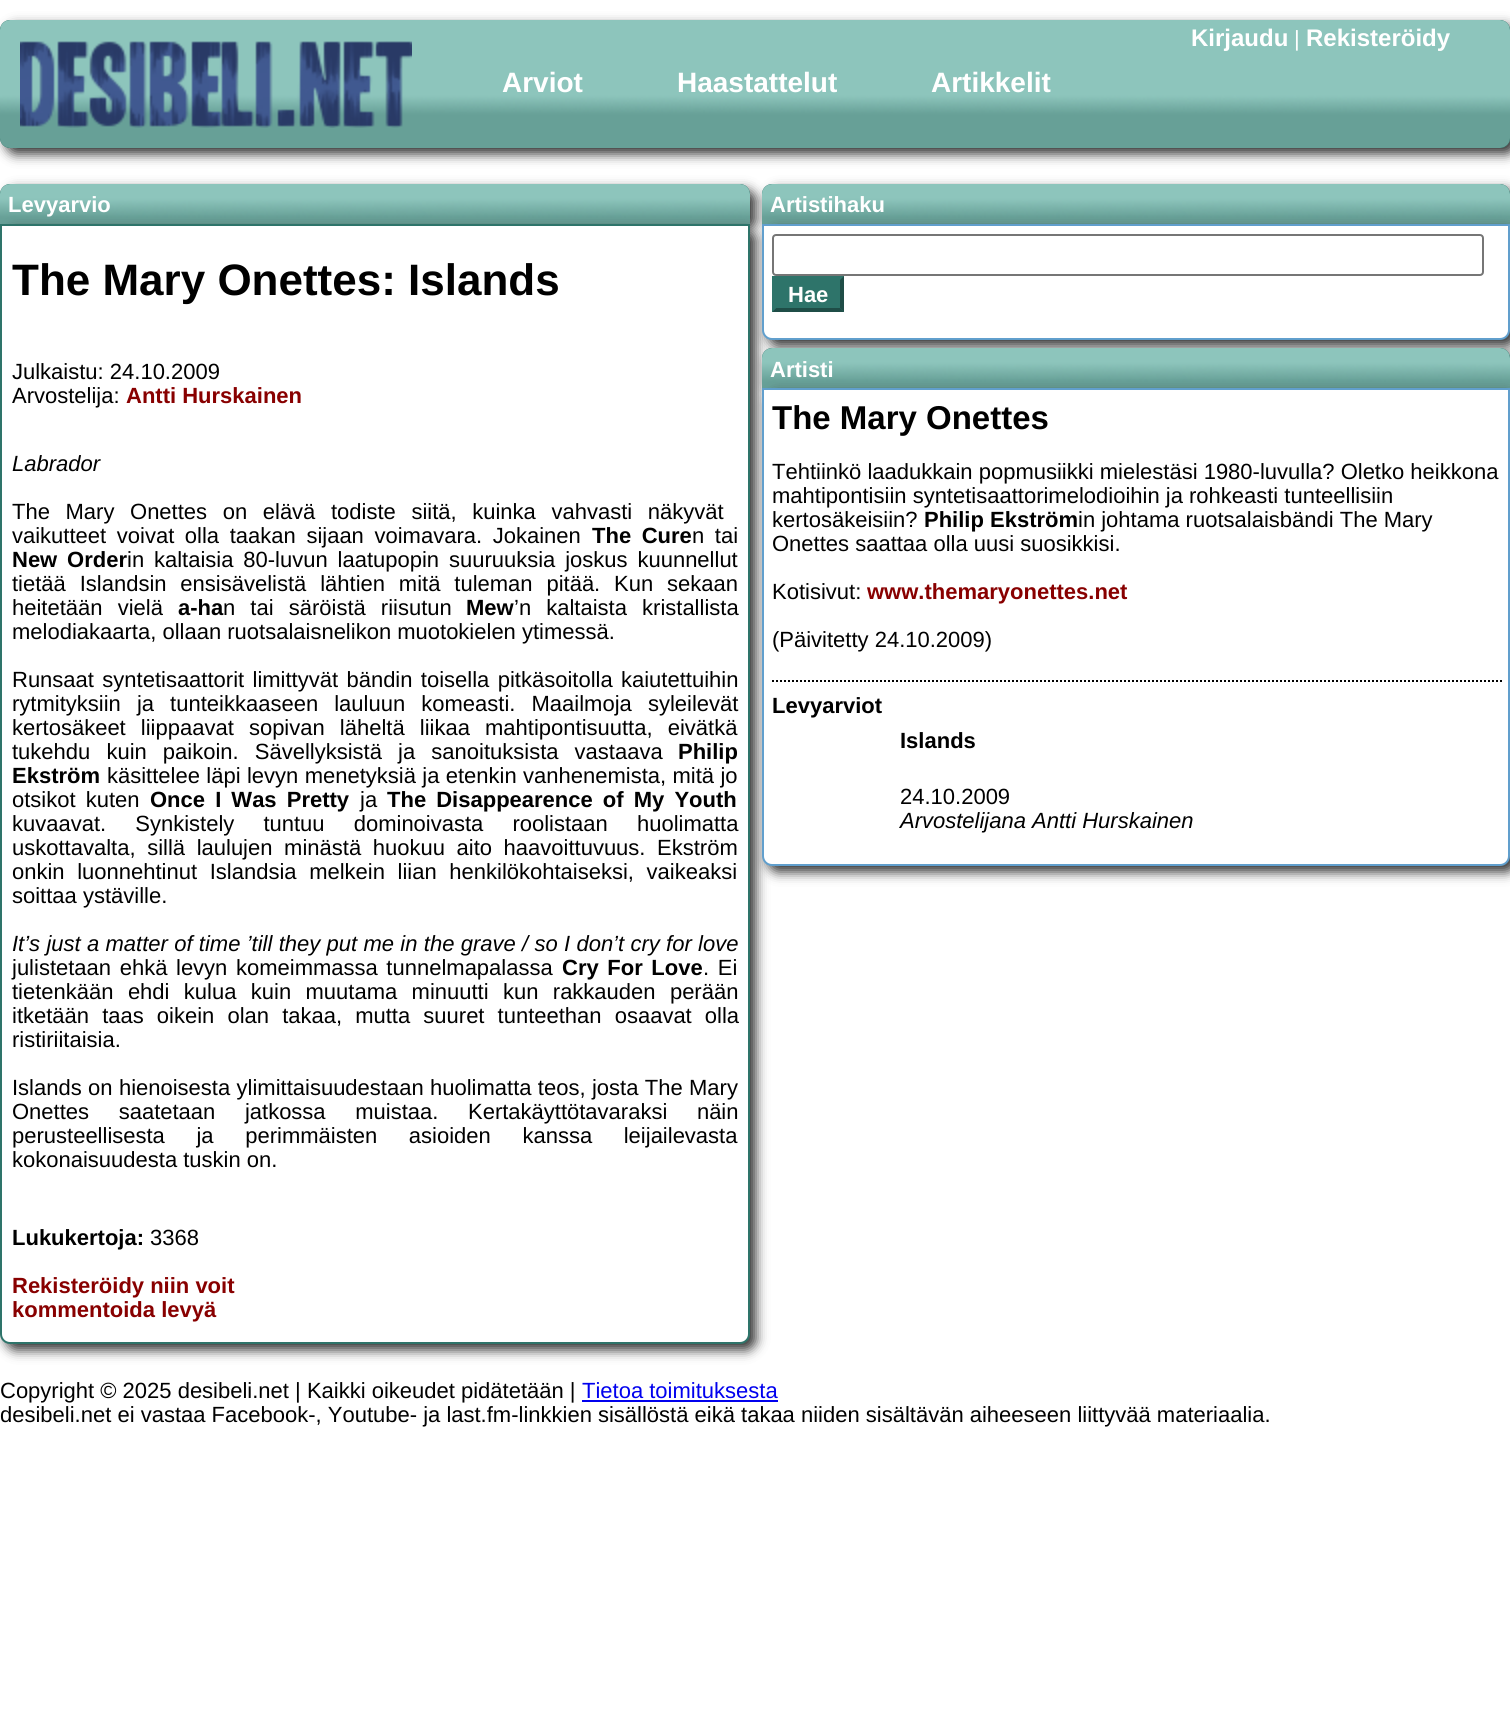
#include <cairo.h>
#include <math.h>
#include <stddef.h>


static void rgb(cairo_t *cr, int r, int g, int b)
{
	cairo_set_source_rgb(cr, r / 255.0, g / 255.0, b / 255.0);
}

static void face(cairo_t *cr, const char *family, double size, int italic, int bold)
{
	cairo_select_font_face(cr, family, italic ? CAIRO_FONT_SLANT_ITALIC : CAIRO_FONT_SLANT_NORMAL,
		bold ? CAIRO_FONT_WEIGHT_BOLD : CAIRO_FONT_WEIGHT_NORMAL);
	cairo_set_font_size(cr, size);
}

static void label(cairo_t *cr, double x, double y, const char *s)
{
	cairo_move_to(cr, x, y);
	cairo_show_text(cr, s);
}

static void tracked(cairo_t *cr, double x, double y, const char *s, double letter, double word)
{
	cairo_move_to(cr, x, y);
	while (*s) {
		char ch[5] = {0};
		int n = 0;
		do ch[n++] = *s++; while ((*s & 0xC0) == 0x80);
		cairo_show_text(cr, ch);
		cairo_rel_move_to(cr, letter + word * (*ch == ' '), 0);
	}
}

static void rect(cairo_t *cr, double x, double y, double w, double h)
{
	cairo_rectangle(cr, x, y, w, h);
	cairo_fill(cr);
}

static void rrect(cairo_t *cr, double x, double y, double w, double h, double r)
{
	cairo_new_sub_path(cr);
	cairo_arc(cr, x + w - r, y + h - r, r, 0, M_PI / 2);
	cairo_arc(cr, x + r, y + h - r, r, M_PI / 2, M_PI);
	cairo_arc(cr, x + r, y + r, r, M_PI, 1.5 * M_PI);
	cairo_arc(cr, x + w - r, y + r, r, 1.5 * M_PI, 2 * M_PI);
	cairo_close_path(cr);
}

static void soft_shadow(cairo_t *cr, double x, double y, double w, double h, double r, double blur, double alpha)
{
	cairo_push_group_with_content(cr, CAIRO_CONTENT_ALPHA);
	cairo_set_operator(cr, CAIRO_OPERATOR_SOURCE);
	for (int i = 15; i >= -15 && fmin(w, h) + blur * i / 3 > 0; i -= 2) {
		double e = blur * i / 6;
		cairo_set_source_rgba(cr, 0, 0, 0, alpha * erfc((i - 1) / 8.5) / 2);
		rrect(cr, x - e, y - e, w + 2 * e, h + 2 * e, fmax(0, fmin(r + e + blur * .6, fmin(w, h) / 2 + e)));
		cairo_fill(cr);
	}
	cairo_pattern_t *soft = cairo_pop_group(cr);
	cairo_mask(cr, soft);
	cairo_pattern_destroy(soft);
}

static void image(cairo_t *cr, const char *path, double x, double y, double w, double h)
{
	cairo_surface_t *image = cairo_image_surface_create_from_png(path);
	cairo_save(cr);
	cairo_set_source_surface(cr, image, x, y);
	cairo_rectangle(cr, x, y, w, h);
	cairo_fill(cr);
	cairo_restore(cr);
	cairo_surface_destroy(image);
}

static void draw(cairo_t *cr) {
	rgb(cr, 255, 255, 255);
	cairo_paint(cr);
	rgb(cr, 51, 51, 51);
	soft_shadow(cr, 6, 26, 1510, 128, 10, 6, 1);
	rgb(cr, 46, 116, 106);
	rrect(cr, 0, 20, 1510, 128, 10);
	cairo_fill(cr);
	image(cr, "image0.png", 0, 20, 1510, 128);
	image(cr, "image1.png", 20, 41, 392, 87);
	face(cr, "Liberation Sans", 28, 0, 1);
	rgb(cr, 255, 255, 255);
	label(cr, 502, 92, "Arviot");
	label(cr, 677, 92, "Haastattelut");
	label(cr, 931, 92, "Artikkelit");
	face(cr, "Liberation Sans", 24, 0, 1);
	label(cr, 1191, 46, "Kirjaudu");
	face(cr, "Liberation Sans", 22, 0, 0);
	label(cr, 1294, 46, "|");
	face(cr, "Liberation Sans", 24, 0, 1);
	label(cr, 1306, 46, "Rekisteröidy");
	rgb(cr, 51, 51, 51);
	soft_shadow(cr, 6, 190, 750, 40, 10, 6, 1);
	rgb(cr, 46, 116, 106);
	cairo_new_path(cr);
	cairo_move_to(cr, 10, 184);
	cairo_line_to(cr, 740, 184);
	cairo_curve_to(cr, 745.5, 184, 750, 188.5, 750, 194);
	cairo_line_to(cr, 750, 224);
	cairo_line_to(cr, 0, 224);
	cairo_line_to(cr, 0, 194);
	cairo_curve_to(cr, 0, 188.5, 4.5, 184, 10, 184);
	cairo_close_path(cr);
	cairo_fill(cr);
	image(cr, "image2.png", 0, 184, 750, 40);
	face(cr, "Liberation Sans", 22, 0, 1);
	rgb(cr, 255, 255, 255);
	label(cr, 8, 212, "Levyarvio");
	rgb(cr, 51, 51, 51);
	soft_shadow(cr, 6, 230, 750, 1120, 10, 6, 1);
	rgb(cr, 255, 255, 255);
	cairo_new_path(cr);
	cairo_move_to(cr, 1, 225);
	cairo_line_to(cr, 749, 225);
	cairo_line_to(cr, 749, 1334);
	cairo_curve_to(cr, 749, 1339, 745, 1343, 740, 1343);
	cairo_line_to(cr, 10, 1343);
	cairo_curve_to(cr, 5, 1343, 1, 1339, 1, 1334);
	cairo_close_path(cr);
	cairo_fill_preserve(cr);
	rgb(cr, 46, 116, 106);
	cairo_stroke(cr);
	face(cr, "Liberation Sans", 44, 0, 1);
	rgb(cr, 0, 0, 0);
	label(cr, 12, 295, "The Mary Onettes: Islands");
	face(cr, "Liberation Sans", 22, 0, 0);
	label(cr, 12, 379, "Julkaistu: 24.10.2009");
	label(cr, 12, 403, "Arvostelija:");
	face(cr, "Liberation Sans", 22, 0, 1);
	rgb(cr, 136, 0, 0);
	label(cr, 126, 403, "Antti Hurskainen");
	face(cr, "Liberation Sans", 22, 1, 0);
	rgb(cr, 0, 0, 0);
	label(cr, 12, 471, "Labrador");
	face(cr, "Liberation Sans", 22, 0, 0);
	tracked(cr, 12, 519, "The Mary Onettes on elävä todiste siitä, kuinka vahvasti näkyvät", 0, 9.5);
	tracked(cr, 12, 543, "vaikutteet voivat olla taakan sijaan voimavara. Jokainen", 0, 4.5);
	face(cr, "Liberation Sans", 22, 0, 1);
	tracked(cr, 592, 543, "The Cure", 0, 4.5);
	face(cr, "Liberation Sans", 22, 0, 0);
	tracked(cr, 692, 543, "n tai", 0, 4.5);
	face(cr, "Liberation Sans", 22, 0, 1);
	tracked(cr, 12, 567, "New Order", 0, 3.75);
	face(cr, "Liberation Sans", 22, 0, 0);
	tracked(cr, 127, 567, "in kaltaisia 80-luvun laatupopin suuruuksia joskus kuunnellut", 0, 3.75);
	tracked(cr, 12, 591, "tietää Islandsin ensisävelistä lähtien mitä tuleman pitää. Kun sekaan", 0, 7.75);
	tracked(cr, 12, 615, "heitetään vielä", 0, 9);
	face(cr, "Liberation Sans", 22, 0, 1);
	label(cr, 178, 615, "a-ha");
	face(cr, "Liberation Sans", 22, 0, 0);
	tracked(cr, 223, 615, "n tai säröistä riisutun", 0, 9);
	face(cr, "Liberation Sans", 22, 0, 1);
	label(cr, 466, 615, "Mew");
	face(cr, "Liberation Sans", 22, 0, 0);
	tracked(cr, 514, 615, "’n kaltaista kristallista", 0, 9);
	label(cr, 12, 639, "melodiakaarta, ollaan ruotsalaisnelikon muotokielen ytimessä.");
	tracked(cr, 12, 687, "Runsaat syntetisaattorit limittyvät bändin toisella pitkäsoitolla kaiutettuihin", 0, 2.25);
	tracked(cr, 12, 711, "rytmityksiin ja tunteikkaaseen lauluun komeasti. Maailmoja syleilevät", 0, 10);
	tracked(cr, 12, 735, "kertosäkeet liippaavat sopivan läheltä liikaa mahtipontisuutta, eivätkä", 0, 9);
	tracked(cr, 12, 759, "tukehdu kuin paikoin. Sävellyksistä ja sanoituksista vastaava", 0, 10);
	face(cr, "Liberation Sans", 22, 0, 1);
	label(cr, 678, 759, "Philip");
	label(cr, 12, 783, "Ekström");
	face(cr, "Liberation Sans", 22, 0, 0);
	tracked(cr, 107, 783, "käsittelee läpi levyn menetyksiä ja etenkin vanhenemista, mitä jo", 0, 0.25);
	tracked(cr, 12, 807, "otsikot kuten", 0, 4);
	face(cr, "Liberation Sans", 22, 0, 1);
	tracked(cr, 150, 807, "Once I Was Pretty", 0, 4);
	face(cr, "Liberation Sans", 22, 0, 0);
	label(cr, 360, 807, "ja");
	face(cr, "Liberation Sans", 22, 0, 1);
	tracked(cr, 387, 807, "The Disappearence of My Youth", 0, 4);
	face(cr, "Liberation Sans", 22, 0, 0);
	tracked(cr, 12, 831, "kuvaavat. Synkistely tuntuu dominoivasta roolistaan huolimatta", 0, 23);
	tracked(cr, 12, 855, "uskottavalta, sillä laulujen minästä huokuu aito haavoittuvuus. Ekström", 0, 5.5);
	tracked(cr, 12, 879, "onkin luonnehtinut Islandsia melkein liian henkilökohtaiseksi, vaikeaksi", 0, 6.5);
	label(cr, 12, 903, "soittaa ystäville.");
	face(cr, "Liberation Sans", 22, 1, 0);
	tracked(cr, 12, 951, "It’s just a matter of time ’till they put me in the grave / so I don’t cry for love", 0, 0.2);
	face(cr, "Liberation Sans", 22, 0, 0);
	tracked(cr, 12, 975, "julistetaan ehkä levyn komeimmassa tunnelmapalassa", 0, 2.5);
	face(cr, "Liberation Sans", 22, 0, 1);
	tracked(cr, 562, 975, "Cry For Love", 0, 2.5);
	face(cr, "Liberation Sans", 22, 0, 0);
	tracked(cr, 703, 975, ". Ei", 0, 2.5);
	tracked(cr, 12, 999, "tietenkään ehdi kulua kuin muutama minuutti kun rakkauden perään", 0, 8.25);
	tracked(cr, 12, 1023, "itketään taas oikein olan takaa, mutta suuret tunteethan osaavat olla", 0, 7);
	label(cr, 12, 1047, "ristiriitaisia.");
	tracked(cr, 12, 1095, "Islands on hienoisesta ylimittaisuudestaan huolimatta teos, josta The Mary", 0, 0.25);
	tracked(cr, 12, 1119, "Onettes saatetaan jatkossa muistaa. Kertakäyttötavaraksi näin", 0, 23.5);
	tracked(cr, 12, 1143, "perusteellisesta ja perimmäisten asioiden kanssa leijailevasta", 0, 25.5);
	label(cr, 12, 1167, "kokonaisuudesta tuskin on.");
	face(cr, "Liberation Sans", 22, 0, 1);
	label(cr, 12, 1245, "Lukukertoja:");
	face(cr, "Liberation Sans", 22, 0, 0);
	label(cr, 150, 1245, "3368");
	face(cr, "Liberation Sans", 22, 0, 1);
	rgb(cr, 136, 0, 0);
	label(cr, 12, 1293, "Rekisteröidy niin voit");
	label(cr, 12, 1317, "kommentoida levyä");
	rgb(cr, 51, 51, 51);
	soft_shadow(cr, 768, 190, 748, 40, 10, 6, 1);
	rgb(cr, 46, 116, 106);
	cairo_new_path(cr);
	cairo_move_to(cr, 772, 184);
	cairo_line_to(cr, 1500, 184);
	cairo_curve_to(cr, 1505.5, 184, 1510, 188.5, 1510, 194);
	cairo_line_to(cr, 1510, 224);
	cairo_line_to(cr, 762, 224);
	cairo_line_to(cr, 762, 194);
	cairo_curve_to(cr, 762, 188.5, 766.5, 184, 772, 184);
	cairo_close_path(cr);
	cairo_fill(cr);
	image(cr, "image3.png", 762, 184, 748, 40);
	rgb(cr, 51, 51, 51);
	soft_shadow(cr, 768, 230, 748, 116, 10, 6, 1);
	rgb(cr, 255, 255, 255);
	label(cr, 770, 212, "Artistihaku");
	cairo_new_path(cr);
	cairo_move_to(cr, 763, 225);
	cairo_line_to(cr, 1509, 225);
	cairo_line_to(cr, 1509, 330);
	cairo_curve_to(cr, 1509, 335, 1505, 339, 1500, 339);
	cairo_line_to(cr, 772, 339);
	cairo_curve_to(cr, 767, 339, 763, 335, 763, 330);
	cairo_close_path(cr);
	cairo_fill_preserve(cr);
	rgb(cr, 97, 159, 205);
	cairo_stroke(cr);
	rrect(cr, 773, 235, 710, 40, 3);
	rgb(cr, 118, 118, 118);
	cairo_stroke(cr);
	rgb(cr, 46, 116, 106);
	rect(cr, 772, 276, 72, 36);
	rgb(cr, 31, 77, 71);
	cairo_new_path(cr);
	cairo_move_to(cr, 844, 276);
	cairo_line_to(cr, 844, 312);
	cairo_line_to(cr, 840, 308);
	cairo_line_to(cr, 840, 280);
	cairo_close_path(cr);
	cairo_fill(cr);
	cairo_new_path(cr);
	cairo_move_to(cr, 844, 312);
	cairo_line_to(cr, 772, 312);
	cairo_line_to(cr, 776, 308);
	cairo_line_to(cr, 840, 308);
	cairo_close_path(cr);
	cairo_fill(cr);
	rgb(cr, 46, 116, 106);
	cairo_new_path(cr);
	cairo_move_to(cr, 772, 312);
	cairo_line_to(cr, 772, 276);
	cairo_line_to(cr, 776, 280);
	cairo_line_to(cr, 776, 308);
	cairo_close_path(cr);
	cairo_fill(cr);
	rgb(cr, 255, 255, 255);
	label(cr, 788, 302, "Hae");
	rgb(cr, 51, 51, 51);
	soft_shadow(cr, 768, 354, 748, 40, 10, 6, 1);
	rgb(cr, 46, 116, 106);
	cairo_new_path(cr);
	cairo_move_to(cr, 772, 348);
	cairo_line_to(cr, 1500, 348);
	cairo_curve_to(cr, 1505.5, 348, 1510, 352.5, 1510, 358);
	cairo_line_to(cr, 1510, 388);
	cairo_line_to(cr, 762, 388);
	cairo_line_to(cr, 762, 358);
	cairo_curve_to(cr, 762, 352.5, 766.5, 348, 772, 348);
	cairo_close_path(cr);
	cairo_fill(cr);
	image(cr, "image4.png", 762, 348, 748, 40);
	rgb(cr, 51, 51, 51);
	soft_shadow(cr, 768, 394, 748, 478, 10, 6, 1);
	rgb(cr, 255, 255, 255);
	label(cr, 770, 377, "Artisti");
	cairo_new_path(cr);
	cairo_move_to(cr, 763, 389);
	cairo_line_to(cr, 1509, 389);
	cairo_line_to(cr, 1509, 856);
	cairo_curve_to(cr, 1509, 861, 1505, 865, 1500, 865);
	cairo_line_to(cr, 772, 865);
	cairo_curve_to(cr, 767, 865, 763, 861, 763, 856);
	cairo_close_path(cr);
	cairo_fill_preserve(cr);
	rgb(cr, 97, 159, 205);
	cairo_stroke(cr);
	face(cr, "Liberation Sans", 33, 0, 1);
	rgb(cr, 0, 0, 0);
	label(cr, 772, 429, "The Mary Onettes");
	face(cr, "Liberation Sans", 22, 0, 0);
	label(cr, 772, 479, "Tehtiinkö laadukkain popmusiikki mielestäsi 1980-luvulla? Oletko heikkona");
	label(cr, 772, 503, "mahtipontisiin syntetisaattorimelodioihin ja rohkeasti tunteellisiin");
	label(cr, 772, 527, "kertosäkeisiin?");
	face(cr, "Liberation Sans", 22, 0, 1);
	label(cr, 924, 527, "Philip Ekström");
	face(cr, "Liberation Sans", 22, 0, 0);
	label(cr, 1078, 527, "in johtama ruotsalaisbändi The Mary");
	label(cr, 772, 551, "Onettes saattaa olla uusi suosikkisi.");
	label(cr, 772, 599, "Kotisivut:");
	face(cr, "Liberation Sans", 22, 0, 1);
	rgb(cr, 136, 0, 0);
	label(cr, 867, 599, "www.themaryonettes.net");
	face(cr, "Liberation Sans", 22, 0, 0);
	rgb(cr, 0, 0, 0);
	label(cr, 772, 647, "(Päivitetty 24.10.2009)");
	cairo_new_path(cr);
	cairo_move_to(cr, 772, 681);
	cairo_line_to(cr, 1504, 681);
	cairo_set_dash(cr, (double[]){2, 2}, 2, 0);
	cairo_stroke(cr);
	face(cr, "Liberation Sans", 22, 0, 1);
	label(cr, 772, 713, "Levyarviot");
	label(cr, 900, 748, "Islands");
	face(cr, "Liberation Sans", 22, 0, 0);
	label(cr, 900, 804, "24.10.2009");
	face(cr, "Liberation Sans", 22, 1, 0);
	label(cr, 900, 828, "Arvostelijana Antti Hurskainen");
	face(cr, "Liberation Sans", 22, 0, 0);
	label(cr, 0, 1398, "Copyright © 2025 desibeli.net | Kaikki oikeudet pidätetään |");
	rgb(cr, 0, 0, 238);
	label(cr, 582, 1398, "Tietoa toimituksesta");
	rect(cr, 582, 1400, 196, 2);
	rgb(cr, 0, 0, 0);
	label(cr, 0, 1422, "desibeli.net ei vastaa Facebook-, Youtube- ja last.fm-linkkien sisällöstä eikä takaa niiden sisältävän aiheeseen liittyvää materiaalia.");
}

int main(void) {
	cairo_surface_t *surface = cairo_image_surface_create(CAIRO_FORMAT_RGB24, 1510, 1728);
	cairo_t *cr = cairo_create(surface);
	cairo_font_options_t *options = cairo_font_options_create();
	cairo_font_options_set_hint_metrics(options, CAIRO_HINT_METRICS_OFF);
	cairo_font_options_set_hint_style(options, CAIRO_HINT_STYLE_NONE);
	cairo_set_font_options(cr, options);
	cairo_set_miter_limit(cr, 4);
	draw(cr);
	cairo_surface_write_to_png(surface, "render.png");
	cairo_font_options_destroy(options);
	cairo_destroy(cr);
	cairo_surface_destroy(surface);
	return 0;
}
